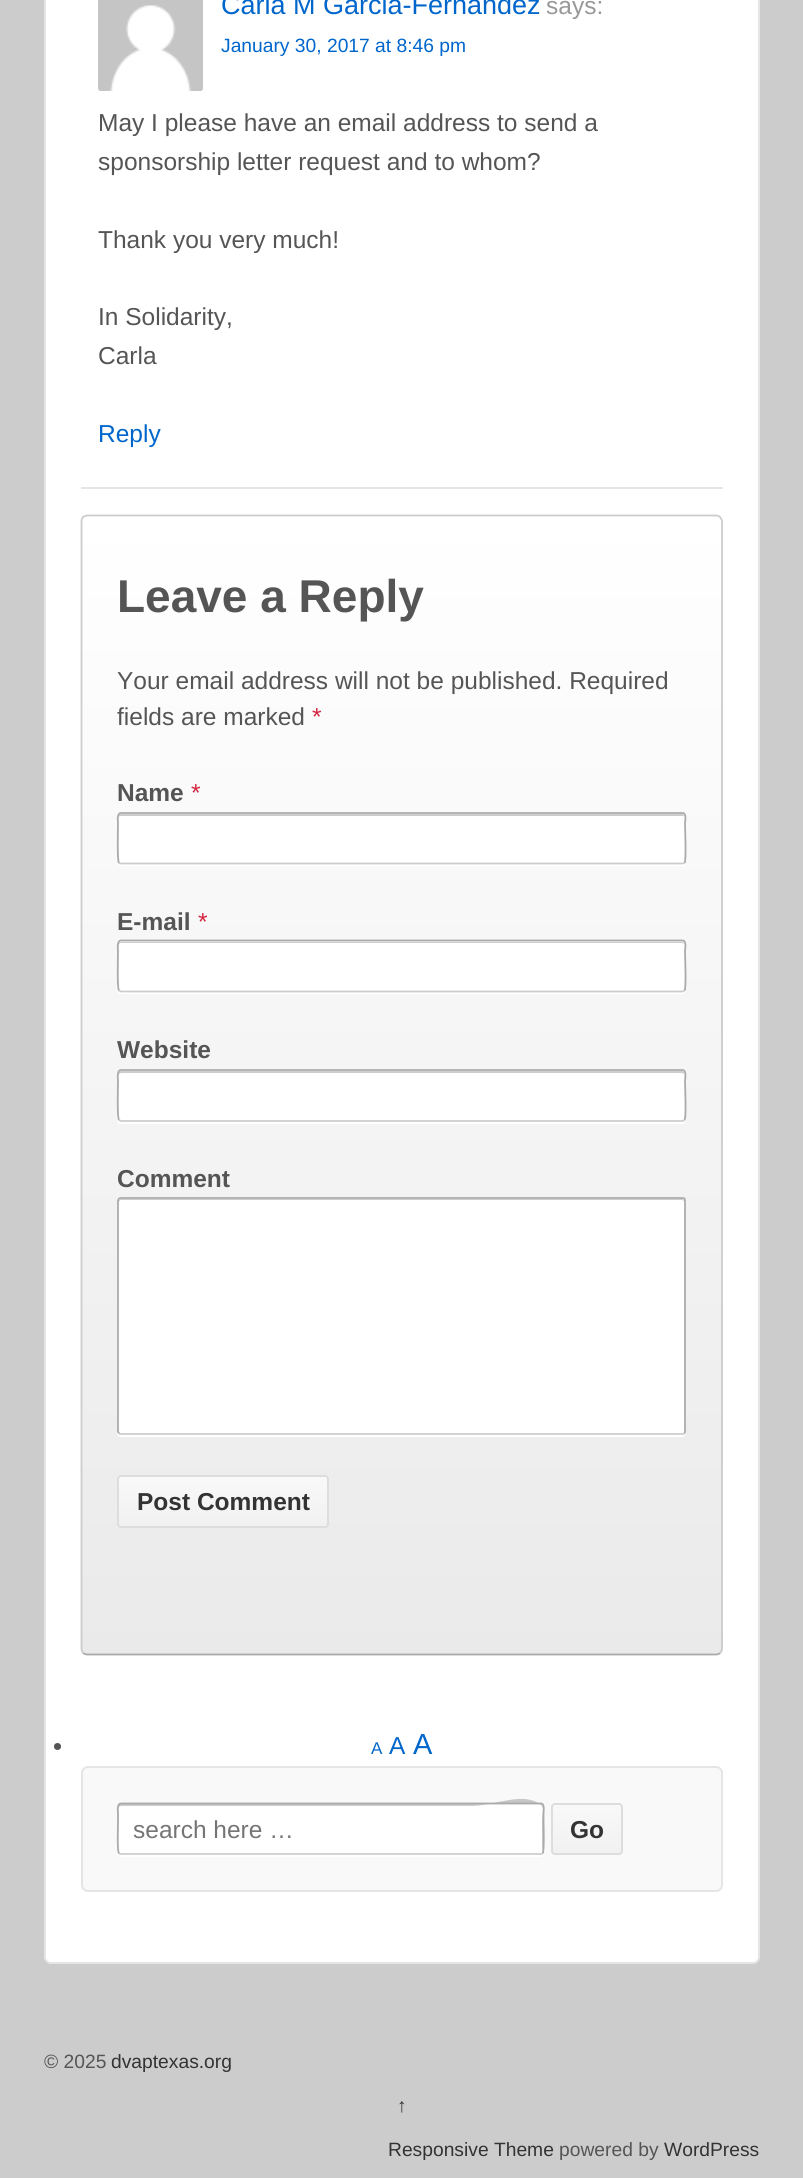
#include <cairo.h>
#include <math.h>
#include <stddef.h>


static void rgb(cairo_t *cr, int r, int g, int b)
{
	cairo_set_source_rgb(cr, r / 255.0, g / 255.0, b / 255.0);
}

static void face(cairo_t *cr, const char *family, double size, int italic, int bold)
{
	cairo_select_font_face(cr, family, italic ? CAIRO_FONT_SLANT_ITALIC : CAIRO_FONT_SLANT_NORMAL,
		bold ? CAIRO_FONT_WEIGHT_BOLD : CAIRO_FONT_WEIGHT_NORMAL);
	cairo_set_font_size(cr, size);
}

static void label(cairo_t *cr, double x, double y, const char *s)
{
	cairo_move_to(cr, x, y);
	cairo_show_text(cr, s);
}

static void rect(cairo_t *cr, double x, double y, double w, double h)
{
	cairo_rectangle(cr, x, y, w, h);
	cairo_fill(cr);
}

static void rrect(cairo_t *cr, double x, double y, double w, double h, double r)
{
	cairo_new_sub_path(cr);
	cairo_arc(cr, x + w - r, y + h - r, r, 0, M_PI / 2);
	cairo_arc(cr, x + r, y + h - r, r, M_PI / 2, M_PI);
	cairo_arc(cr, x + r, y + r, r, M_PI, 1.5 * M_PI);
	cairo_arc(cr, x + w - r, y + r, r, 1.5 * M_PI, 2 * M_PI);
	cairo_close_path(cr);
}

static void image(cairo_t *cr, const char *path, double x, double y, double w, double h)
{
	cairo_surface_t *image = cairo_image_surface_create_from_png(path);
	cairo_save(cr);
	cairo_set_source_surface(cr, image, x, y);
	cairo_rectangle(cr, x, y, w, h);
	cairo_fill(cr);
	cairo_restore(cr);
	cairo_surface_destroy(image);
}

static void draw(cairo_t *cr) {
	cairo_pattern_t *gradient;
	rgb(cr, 204, 204, 204);
	cairo_paint(cr);
	rgb(cr, 255, 255, 255);
	rrect(cr, 45, -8, 714, 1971, 6);
	cairo_fill_preserve(cr);
	rgb(cr, 229, 229, 229);
	cairo_stroke(cr);
	rect(cr, 81, 487, 642, 2);
	image(cr, "image0.png", 98, 0, 105, 91);
	face(cr, "Liberation Sans", 27, 0, 0);
	rgb(cr, 0, 102, 204);
	label(cr, 221, 14, "Carla M Garcia-Fernandez");
	face(cr, "Liberation Sans", 24.5, 0, 0);
	rgb(cr, 153, 153, 153);
	label(cr, 546, 14, "says:");
	face(cr, "Liberation Sans", 19.25, 0, 0);
	rgb(cr, 0, 102, 204);
	label(cr, 221, 52, "January 30, 2017 at 8:46 pm");
	face(cr, "Liberation Sans", 24.5, 0, 0);
	rgb(cr, 85, 85, 85);
	label(cr, 98, 131, "May I please have an email address to send a");
	label(cr, 98, 170, "sponsorship letter request and to whom?");
	label(cr, 98, 248, "Thank you very much!");
	label(cr, 98, 325, "In Solidarity,");
	label(cr, 98, 364, "Carla");
	rgb(cr, 0, 102, 204);
	label(cr, 98, 442, "Reply");
	cairo_save(cr);
	rrect(cr, 81, 515, 642, 1141, 7);
	cairo_clip(cr);
	gradient = cairo_pattern_create_linear(402, 516, 402, 1654);
	cairo_pattern_add_color_stop_rgba(gradient, 0, 1, 1, 1, 1);
	cairo_pattern_add_color_stop_rgba(gradient, 1, 0.918, 0.918, 0.918, 1);
	cairo_set_source(cr, gradient);
	cairo_pattern_destroy(gradient);
	rect(cr, 81, 516, 642, 1138);
	cairo_restore(cr);
	cairo_new_path(cr);
	cairo_move_to(cr, 720, 1653);
	cairo_curve_to(cr, 719, 1654, 717.5, 1654.5, 716, 1654.5);
	cairo_line_to(cr, 87.5, 1654.5);
	cairo_curve_to(cr, 86, 1654.5, 84.5, 1654, 83, 1653);
	rgb(cr, 170, 170, 170);
	cairo_set_line_width(cr, 1.8);
	cairo_stroke(cr);
	cairo_new_path(cr);
	cairo_move_to(cr, 83, 1653);
	cairo_curve_to(cr, 82, 1651.5, 81.5, 1650, 81.5, 1648.5);
	cairo_line_to(cr, 81.5, 521.5);
	cairo_curve_to(cr, 81.5, 520, 82, 518.5, 83, 517);
	cairo_curve_to(cr, 84.5, 516, 86, 515.5, 87.5, 515.5);
	cairo_line_to(cr, 716, 515.5);
	cairo_curve_to(cr, 717.5, 515.5, 719, 516, 720, 517);
	cairo_curve_to(cr, 721, 518.5, 722, 520, 722, 521.5);
	cairo_line_to(cr, 722, 1648.5);
	cairo_curve_to(cr, 722, 1650, 721, 1651.5, 720, 1653);
	rgb(cr, 204, 204, 204);
	cairo_stroke(cr);
	face(cr, "Liberation Sans", 46, 0, 1);
	rgb(cr, 85, 85, 85);
	label(cr, 117, 612, "Leave a Reply");
	face(cr, "Liberation Sans", 24.5, 0, 0);
	label(cr, 117, 689, "Your email address will not be published. Required");
	label(cr, 117, 725, "fields are marked");
	rgb(cr, 213, 36, 63);
	label(cr, 312, 725, "*");
	face(cr, "Liberation Sans", 24.5, 0, 1);
	rgb(cr, 85, 85, 85);
	label(cr, 117, 801, "Name");
	face(cr, "Liberation Sans", 24.5, 0, 0);
	rgb(cr, 213, 36, 63);
	label(cr, 191, 801, "*");
	rgb(cr, 255, 255, 255);
	cairo_new_path(cr);
	cairo_move_to(cr, 117, 817);
	cairo_line_to(cr, 117, 862);
	cairo_curve_to(cr, 117, 864, 119, 866, 121, 866);
	cairo_line_to(cr, 682, 866);
	cairo_curve_to(cr, 684, 866, 686, 864, 686, 862);
	cairo_line_to(cr, 686, 861);
	cairo_curve_to(cr, 686, 863, 684, 864, 682, 864);
	cairo_line_to(cr, 121, 864);
	cairo_curve_to(cr, 119, 864, 117, 863, 117, 861);
	cairo_close_path(cr);
	cairo_fill(cr);
	rrect(cr, 117, 812, 569, 53, 4);
	cairo_fill(cr);
	rgb(cr, 204, 204, 204);
	cairo_new_path(cr);
	cairo_move_to(cr, 121, 816);
	cairo_line_to(cr, 682, 816);
	cairo_curve_to(cr, 683, 816, 684, 816, 684, 817);
	cairo_curve_to(cr, 684, 816, 684, 814, 682, 814);
	cairo_line_to(cr, 121, 814);
	cairo_line_to(cr, 119, 815);
	cairo_line_to(cr, 119, 817);
	cairo_curve_to(cr, 119, 816, 120, 816, 121, 816);
	cairo_close_path(cr);
	cairo_fill(cr);
	cairo_new_path(cr);
	cairo_move_to(cr, 684.5, 863);
	cairo_line_to(cr, 682.5, 863.5);
	cairo_line_to(cr, 121, 863.5);
	cairo_line_to(cr, 119, 863);
	cairo_stroke(cr);
	cairo_new_path(cr);
	cairo_move_to(cr, 119, 863);
	cairo_curve_to(cr, 117, 861, 118, 828, 118, 823);
	cairo_curve_to(cr, 118, 822, 116.5, 813, 121, 813);
	cairo_line_to(cr, 682.5, 813);
	cairo_curve_to(cr, 687, 813, 685, 822, 685, 823);
	cairo_curve_to(cr, 685, 828, 686.5, 861, 684.5, 863);
	rgb(cr, 170, 170, 170);
	cairo_stroke(cr);
	face(cr, "Liberation Sans", 24.5, 0, 1);
	rgb(cr, 85, 85, 85);
	label(cr, 117, 930, "E-mail");
	face(cr, "Liberation Sans", 24.5, 0, 0);
	rgb(cr, 213, 36, 63);
	label(cr, 198, 930, "*");
	rgb(cr, 255, 255, 255);
	cairo_new_path(cr);
	cairo_move_to(cr, 117, 945);
	cairo_line_to(cr, 117, 983);
	cairo_curve_to(cr, 117, 986, 115, 994, 121, 994);
	cairo_line_to(cr, 682, 994);
	cairo_curve_to(cr, 685, 994, 686, 991, 686, 989);
	cairo_curve_to(cr, 686, 991, 684, 992, 682, 992);
	cairo_line_to(cr, 121, 992);
	cairo_curve_to(cr, 119, 992, 117, 991, 117, 989);
	cairo_close_path(cr);
	cairo_fill(cr);
	rrect(cr, 117, 940, 569, 52, 4);
	cairo_fill(cr);
	rgb(cr, 204, 204, 204);
	cairo_new_path(cr);
	cairo_move_to(cr, 121, 943);
	cairo_line_to(cr, 682, 943);
	cairo_curve_to(cr, 683, 943, 684, 944, 684, 945);
	cairo_curve_to(cr, 684, 944, 684, 942, 682, 942);
	cairo_line_to(cr, 121, 942);
	cairo_line_to(cr, 119, 943);
	cairo_line_to(cr, 119, 945);
	cairo_curve_to(cr, 119, 944, 120, 943, 121, 943);
	cairo_close_path(cr);
	cairo_fill(cr);
	cairo_new_path(cr);
	cairo_move_to(cr, 684.5, 990.5);
	cairo_line_to(cr, 682.5, 991.5);
	cairo_line_to(cr, 121, 991.5);
	cairo_line_to(cr, 119, 990.5);
	cairo_stroke(cr);
	cairo_new_path(cr);
	cairo_move_to(cr, 119, 990.5);
	cairo_curve_to(cr, 117, 988.5, 118, 956, 118, 951);
	cairo_curve_to(cr, 118, 950, 116.5, 940.5, 121, 940.5);
	cairo_line_to(cr, 682.5, 940.5);
	cairo_curve_to(cr, 687, 940.5, 685, 950, 685, 951);
	cairo_curve_to(cr, 685, 956, 686.5, 988.5, 684.5, 990.5);
	rgb(cr, 170, 170, 170);
	cairo_stroke(cr);
	face(cr, "Liberation Sans", 24.5, 0, 1);
	rgb(cr, 85, 85, 85);
	label(cr, 117, 1058, "Website");
	rgb(cr, 255, 255, 255);
	cairo_new_path(cr);
	cairo_move_to(cr, 117, 1074);
	cairo_line_to(cr, 117, 1112);
	cairo_curve_to(cr, 117, 1115, 115, 1124, 121, 1124);
	cairo_line_to(cr, 682, 1124);
	cairo_curve_to(cr, 685, 1124, 686, 1121, 686, 1118);
	cairo_curve_to(cr, 686, 1120, 684, 1122, 682, 1122);
	cairo_line_to(cr, 121, 1122);
	cairo_curve_to(cr, 119, 1122, 117, 1120, 117, 1118);
	cairo_close_path(cr);
	cairo_fill(cr);
	rrect(cr, 117, 1069, 569, 53, 4);
	cairo_fill(cr);
	rgb(cr, 204, 204, 204);
	cairo_new_path(cr);
	cairo_move_to(cr, 121, 1073);
	cairo_line_to(cr, 682, 1073);
	cairo_line_to(cr, 684, 1074);
	cairo_curve_to(cr, 684, 1073, 684, 1071, 682, 1071);
	cairo_line_to(cr, 121, 1071);
	cairo_line_to(cr, 119, 1072);
	cairo_line_to(cr, 119, 1074);
	cairo_close_path(cr);
	cairo_fill(cr);
	cairo_new_path(cr);
	cairo_move_to(cr, 684.5, 1120);
	cairo_line_to(cr, 682.5, 1121);
	cairo_line_to(cr, 121, 1121);
	cairo_line_to(cr, 119, 1120);
	cairo_stroke(cr);
	cairo_new_path(cr);
	cairo_move_to(cr, 119, 1120);
	cairo_curve_to(cr, 117, 1118, 118, 1085.5, 118, 1080.5);
	cairo_curve_to(cr, 118, 1079.5, 116.5, 1070, 121, 1070);
	cairo_line_to(cr, 682.5, 1070);
	cairo_curve_to(cr, 687, 1070, 685, 1079.5, 685, 1080.5);
	cairo_curve_to(cr, 685, 1085.5, 686.5, 1118, 684.5, 1120);
	rgb(cr, 170, 170, 170);
	cairo_stroke(cr);
	rgb(cr, 85, 85, 85);
	label(cr, 117, 1187, "Comment");
	rgb(cr, 255, 255, 255);
	cairo_new_path(cr);
	cairo_move_to(cr, 117, 1202);
	cairo_line_to(cr, 117, 1433);
	cairo_curve_to(cr, 117, 1435, 119, 1437, 121, 1437);
	cairo_line_to(cr, 682, 1437);
	cairo_curve_to(cr, 684, 1437, 686, 1435, 686, 1433);
	cairo_line_to(cr, 686, 1432);
	cairo_curve_to(cr, 686, 1433, 684, 1435, 682, 1435);
	cairo_line_to(cr, 121, 1435);
	cairo_curve_to(cr, 119, 1435, 117, 1433, 117, 1432);
	cairo_close_path(cr);
	cairo_fill(cr);
	rrect(cr, 117, 1197, 569, 238, 4);
	cairo_fill(cr);
	rgb(cr, 204, 204, 204);
	cairo_new_path(cr);
	cairo_move_to(cr, 121, 1200);
	cairo_line_to(cr, 682, 1200);
	cairo_curve_to(cr, 683, 1200, 684, 1201, 684, 1202);
	cairo_curve_to(cr, 684, 1201, 684, 1199, 682, 1199);
	cairo_line_to(cr, 121, 1199);
	cairo_line_to(cr, 119, 1200);
	cairo_line_to(cr, 119, 1202);
	cairo_curve_to(cr, 119, 1201, 120, 1200, 121, 1200);
	cairo_close_path(cr);
	cairo_fill(cr);
	cairo_new_path(cr);
	cairo_move_to(cr, 684.5, 1433.5);
	cairo_line_to(cr, 682.5, 1434);
	cairo_line_to(cr, 121, 1434);
	cairo_line_to(cr, 119, 1433.5);
	cairo_stroke(cr);
	cairo_new_path(cr);
	cairo_move_to(cr, 119, 1433.5);
	cairo_line_to(cr, 118, 1431.5);
	cairo_line_to(cr, 118, 1200.5);
	cairo_line_to(cr, 119, 1198.5);
	cairo_line_to(cr, 121, 1198);
	cairo_line_to(cr, 682.5, 1198);
	cairo_line_to(cr, 684.5, 1198.5);
	cairo_line_to(cr, 685, 1200.5);
	cairo_line_to(cr, 685, 1431.5);
	cairo_line_to(cr, 684.5, 1433.5);
	rgb(cr, 170, 170, 170);
	cairo_stroke(cr);
	cairo_save(cr);
	rrect(cr, 117, 1475, 212, 53, 4);
	cairo_clip(cr);
	gradient = cairo_pattern_create_linear(223, 1477, 223, 1526);
	cairo_pattern_add_color_stop_rgba(gradient, 0, 0.976, 0.976, 0.976, 1);
	cairo_pattern_add_color_stop_rgba(gradient, 1, 0.945, 0.945, 0.945, 1);
	cairo_set_source(cr, gradient);
	cairo_pattern_destroy(gradient);
	rect(cr, 117, 1477, 212, 49);
	cairo_restore(cr);
	rrect(cr, 118, 1476, 210, 51, 3);
	rgb(cr, 221, 221, 221);
	cairo_set_line_width(cr, 2);
	cairo_stroke(cr);
	rgb(cr, 51, 51, 51);
	label(cr, 137, 1510, "Post Comment");
	rgb(cr, 85, 85, 85);
	cairo_new_path(cr);
	cairo_arc(cr, 57.5, 1746.5, 3.5, 0, 2 * M_PI);
	cairo_fill(cr);
	face(cr, "Liberation Sans", 17, 0, 0);
	rgb(cr, 0, 102, 204);
	label(cr, 371, 1754, "A");
	face(cr, "Liberation Sans", 24.5, 0, 0);
	label(cr, 389, 1754, "A");
	face(cr, "Liberation Sans", 29, 0, 0);
	label(cr, 413, 1754, "A");
	rgb(cr, 249, 249, 249);
	rrect(cr, 82, 1767, 640, 124, 6);
	cairo_fill_preserve(cr);
	rgb(cr, 229, 229, 229);
	cairo_stroke(cr);
	rgb(cr, 255, 255, 255);
	cairo_new_path(cr);
	cairo_move_to(cr, 117, 1807);
	cairo_line_to(cr, 117, 1846);
	cairo_curve_to(cr, 117, 1848, 115, 1857, 121, 1857);
	cairo_line_to(cr, 540, 1857);
	cairo_curve_to(cr, 542, 1857, 544, 1855, 544, 1853);
	cairo_curve_to(cr, 543, 1854, 542, 1855, 541, 1855);
	cairo_line_to(cr, 121, 1855);
	cairo_curve_to(cr, 119, 1855, 117, 1853, 117, 1852);
	cairo_close_path(cr);
	cairo_fill(cr);
	rrect(cr, 117, 1803, 427, 52, 4);
	cairo_fill(cr);
	cairo_set_source_rgba(cr, 0, 0, 0, 0.2);
	cairo_new_path(cr);
	cairo_move_to(cr, 121, 1806);
	cairo_line_to(cr, 471, 1806);
	cairo_curve_to(cr, 495, 1806, 525, 1790, 542, 1806);
	cairo_line_to(cr, 543, 1809);
	cairo_line_to(cr, 542, 1820);
	cairo_line_to(cr, 542, 1846);
	cairo_line_to(cr, 543, 1852);
	cairo_line_to(cr, 543, 1814);
	cairo_curve_to(cr, 543, 1810, 544, 1804, 541, 1804);
	cairo_line_to(cr, 121, 1804);
	cairo_curve_to(cr, 119, 1804, 119, 1806, 119, 1807);
	cairo_close_path(cr);
	cairo_fill(cr);
	cairo_new_path(cr);
	cairo_move_to(cr, 542.5, 1853.5);
	cairo_line_to(cr, 541, 1854);
	cairo_line_to(cr, 121, 1854);
	cairo_line_to(cr, 119, 1853.5);
	rgb(cr, 204, 204, 204);
	cairo_set_line_width(cr, 1.8);
	cairo_stroke(cr);
	cairo_new_path(cr);
	cairo_move_to(cr, 119, 1853.5);
	cairo_curve_to(cr, 117, 1851.5, 118, 1825.5, 118, 1821);
	cairo_line_to(cr, 118, 1813.5);
	cairo_curve_to(cr, 118, 1812.5, 116.5, 1803.5, 121, 1803.5);
	cairo_line_to(cr, 541, 1803.5);
	cairo_curve_to(cr, 545, 1803.5, 543.5, 1812.5, 543.5, 1813.5);
	cairo_line_to(cr, 543.5, 1821);
	cairo_curve_to(cr, 543.5, 1825.5, 544.5, 1851.5, 542.5, 1853.5);
	rgb(cr, 170, 170, 170);
	cairo_stroke(cr);
	face(cr, "Liberation Sans", 24.5, 0, 0);
	rgb(cr, 117, 117, 117);
	label(cr, 133, 1838, "search here …");
	cairo_save(cr);
	rrect(cr, 551, 1803, 72, 52, 4);
	cairo_clip(cr);
	gradient = cairo_pattern_create_linear(587, 1804, 587, 1853);
	cairo_pattern_add_color_stop_rgba(gradient, 0, 0.976, 0.976, 0.976, 1);
	cairo_pattern_add_color_stop_rgba(gradient, 1, 0.945, 0.945, 0.945, 1);
	cairo_set_source(cr, gradient);
	cairo_pattern_destroy(gradient);
	rect(cr, 551, 1804, 72, 49);
	cairo_restore(cr);
	rrect(cr, 552, 1804, 70, 50, 3);
	rgb(cr, 221, 221, 221);
	cairo_set_line_width(cr, 2);
	cairo_stroke(cr);
	face(cr, "Liberation Sans", 24.5, 0, 1);
	rgb(cr, 51, 51, 51);
	label(cr, 570, 1838, "Go");
	face(cr, "Liberation Sans", 19.25, 0, 0);
	rgb(cr, 85, 85, 85);
	label(cr, 44, 2068, "© 2025");
	rgb(cr, 51, 51, 51);
	label(cr, 111, 2068, "dvaptexas.org");
	label(cr, 397, 2112, "↑");
	label(cr, 388, 2156, "Responsive Theme");
	rgb(cr, 85, 85, 85);
	label(cr, 559, 2156, "powered by");
	rgb(cr, 51, 51, 51);
	label(cr, 664, 2156, "WordPress");
}

int main(void) {
	cairo_surface_t *surface = cairo_image_surface_create(CAIRO_FORMAT_RGB24, 803, 2178);
	cairo_t *cr = cairo_create(surface);
	cairo_font_options_t *options = cairo_font_options_create();
	cairo_font_options_set_hint_metrics(options, CAIRO_HINT_METRICS_OFF);
	cairo_font_options_set_hint_style(options, CAIRO_HINT_STYLE_NONE);
	cairo_set_font_options(cr, options);
	cairo_set_miter_limit(cr, 4);
	draw(cr);
	cairo_surface_write_to_png(surface, "render.png");
	cairo_font_options_destroy(options);
	cairo_destroy(cr);
	cairo_surface_destroy(surface);
	return 0;
}
